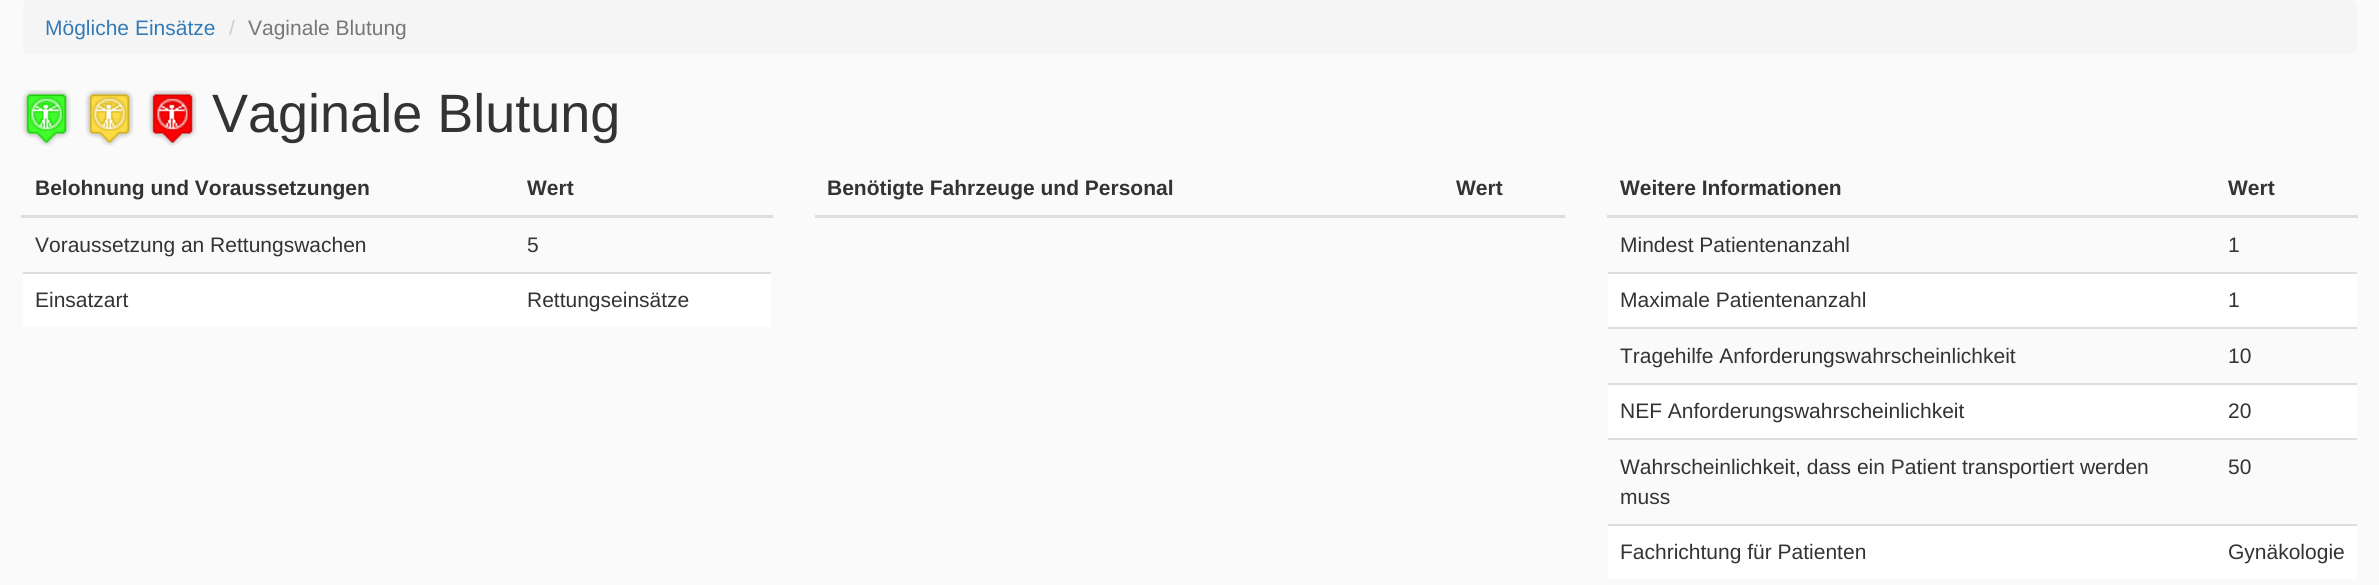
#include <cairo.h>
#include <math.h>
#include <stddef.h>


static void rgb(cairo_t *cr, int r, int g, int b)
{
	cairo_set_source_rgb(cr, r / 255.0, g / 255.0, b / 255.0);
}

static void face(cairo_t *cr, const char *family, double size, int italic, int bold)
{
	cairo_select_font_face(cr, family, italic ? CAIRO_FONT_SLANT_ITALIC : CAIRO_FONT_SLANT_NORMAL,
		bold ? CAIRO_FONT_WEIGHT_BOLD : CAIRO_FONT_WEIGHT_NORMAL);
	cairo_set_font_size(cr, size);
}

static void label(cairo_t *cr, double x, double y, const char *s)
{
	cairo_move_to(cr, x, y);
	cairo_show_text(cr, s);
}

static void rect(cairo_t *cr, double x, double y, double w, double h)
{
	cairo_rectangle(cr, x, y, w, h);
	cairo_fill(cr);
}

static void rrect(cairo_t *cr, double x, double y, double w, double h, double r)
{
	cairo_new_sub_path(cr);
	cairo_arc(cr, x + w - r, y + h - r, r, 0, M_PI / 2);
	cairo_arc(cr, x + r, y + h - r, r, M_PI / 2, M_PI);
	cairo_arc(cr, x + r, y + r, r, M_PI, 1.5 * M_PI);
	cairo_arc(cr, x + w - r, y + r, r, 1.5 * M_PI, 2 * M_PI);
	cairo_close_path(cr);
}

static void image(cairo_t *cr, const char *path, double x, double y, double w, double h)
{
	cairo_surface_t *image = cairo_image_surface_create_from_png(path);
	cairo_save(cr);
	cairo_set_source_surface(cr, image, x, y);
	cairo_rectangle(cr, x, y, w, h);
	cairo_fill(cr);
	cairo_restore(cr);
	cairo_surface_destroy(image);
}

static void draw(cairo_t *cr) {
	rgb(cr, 250, 250, 250);
	cairo_paint(cr);
	rgb(cr, 245, 245, 245);
	rrect(cr, 23, 0, 2334, 54, 6);
	cairo_fill(cr);
	face(cr, "Liberation Sans", 21, 0, 0);
	rgb(cr, 51, 122, 183);
	label(cr, 45, 35, "Mögliche Einsätze");
	rgb(cr, 204, 204, 204);
	label(cr, 229, 35, "/");
	rgb(cr, 119, 119, 119);
	label(cr, 248, 35, "Vaginale Blutung");
	image(cr, "image0.png", 22, 90, 49, 56);
	image(cr, "image1.png", 85, 90, 49, 56);
	image(cr, "image2.png", 148, 90, 49, 56);
	face(cr, "Liberation Sans", 54, 0, 0);
	rgb(cr, 51, 51, 51);
	label(cr, 212, 132, "Vaginale Blutung");
	face(cr, "Liberation Sans", 21, 0, 1);
	label(cr, 35, 195, "Belohnung und Voraussetzungen");
	rgb(cr, 221, 221, 221);
	rect(cr, 21, 215, 752, 3);
	rgb(cr, 51, 51, 51);
	label(cr, 527, 195, "Wert");
	face(cr, "Liberation Sans", 21, 0, 0);
	label(cr, 35, 252, "Voraussetzung an Rettungswachen");
	label(cr, 527, 252, "5");
	rgb(cr, 255, 255, 255);
	rect(cr, 23, 274, 748, 53);
	rgb(cr, 51, 51, 51);
	label(cr, 35, 307, "Einsatzart");
	rgb(cr, 221, 221, 221);
	rect(cr, 23, 272, 748, 2);
	rgb(cr, 51, 51, 51);
	label(cr, 527, 307, "Rettungseinsätze");
	face(cr, "Liberation Sans", 21, 0, 1);
	label(cr, 827, 195, "Benötigte Fahrzeuge und Personal");
	rgb(cr, 221, 221, 221);
	rect(cr, 815, 215, 750, 3);
	rgb(cr, 51, 51, 51);
	label(cr, 1456, 195, "Wert");
	label(cr, 1620, 195, "Weitere Informationen");
	rgb(cr, 221, 221, 221);
	rect(cr, 1607, 215, 751, 3);
	rgb(cr, 51, 51, 51);
	label(cr, 2228, 195, "Wert");
	face(cr, "Liberation Sans", 21, 0, 0);
	label(cr, 1620, 252, "Mindest Patientenanzahl");
	label(cr, 2228, 252, "1");
	rgb(cr, 255, 255, 255);
	rect(cr, 1608, 274, 749, 53);
	rgb(cr, 51, 51, 51);
	label(cr, 1620, 307, "Maximale Patientenanzahl");
	rgb(cr, 221, 221, 221);
	rect(cr, 1608, 272, 749, 2);
	rgb(cr, 51, 51, 51);
	label(cr, 2228, 307, "1");
	label(cr, 1620, 363, "Tragehilfe Anforderungswahrscheinlichkeit");
	rgb(cr, 221, 221, 221);
	rect(cr, 1608, 327, 749, 2);
	rgb(cr, 51, 51, 51);
	label(cr, 2228, 363, "10");
	rgb(cr, 255, 255, 255);
	rect(cr, 1608, 385, 749, 53);
	rgb(cr, 51, 51, 51);
	label(cr, 1620, 418, "NEF Anforderungswahrscheinlichkeit");
	rgb(cr, 221, 221, 221);
	rect(cr, 1608, 383, 749, 2);
	rgb(cr, 51, 51, 51);
	label(cr, 2228, 418, "20");
	label(cr, 1620, 474, "Wahrscheinlichkeit, dass ein Patient transportiert werden");
	label(cr, 1620, 504, "muss");
	rgb(cr, 221, 221, 221);
	rect(cr, 1608, 438, 749, 2);
	rgb(cr, 51, 51, 51);
	label(cr, 2228, 474, "50");
	rgb(cr, 255, 255, 255);
	rect(cr, 1608, 526, 749, 53);
	rgb(cr, 51, 51, 51);
	label(cr, 1620, 559, "Fachrichtung für Patienten");
	rgb(cr, 221, 221, 221);
	rect(cr, 1608, 524, 749, 2);
	rgb(cr, 51, 51, 51);
	label(cr, 2228, 559, "Gynäkologie");
}

int main(void) {
	cairo_surface_t *surface = cairo_image_surface_create(CAIRO_FORMAT_RGB24, 2379, 585);
	cairo_t *cr = cairo_create(surface);
	cairo_font_options_t *options = cairo_font_options_create();
	cairo_font_options_set_hint_metrics(options, CAIRO_HINT_METRICS_OFF);
	cairo_font_options_set_hint_style(options, CAIRO_HINT_STYLE_NONE);
	cairo_set_font_options(cr, options);
	cairo_set_miter_limit(cr, 4);
	draw(cr);
	cairo_surface_write_to_png(surface, "render.png");
	cairo_font_options_destroy(options);
	cairo_destroy(cr);
	cairo_surface_destroy(surface);
	return 0;
}
